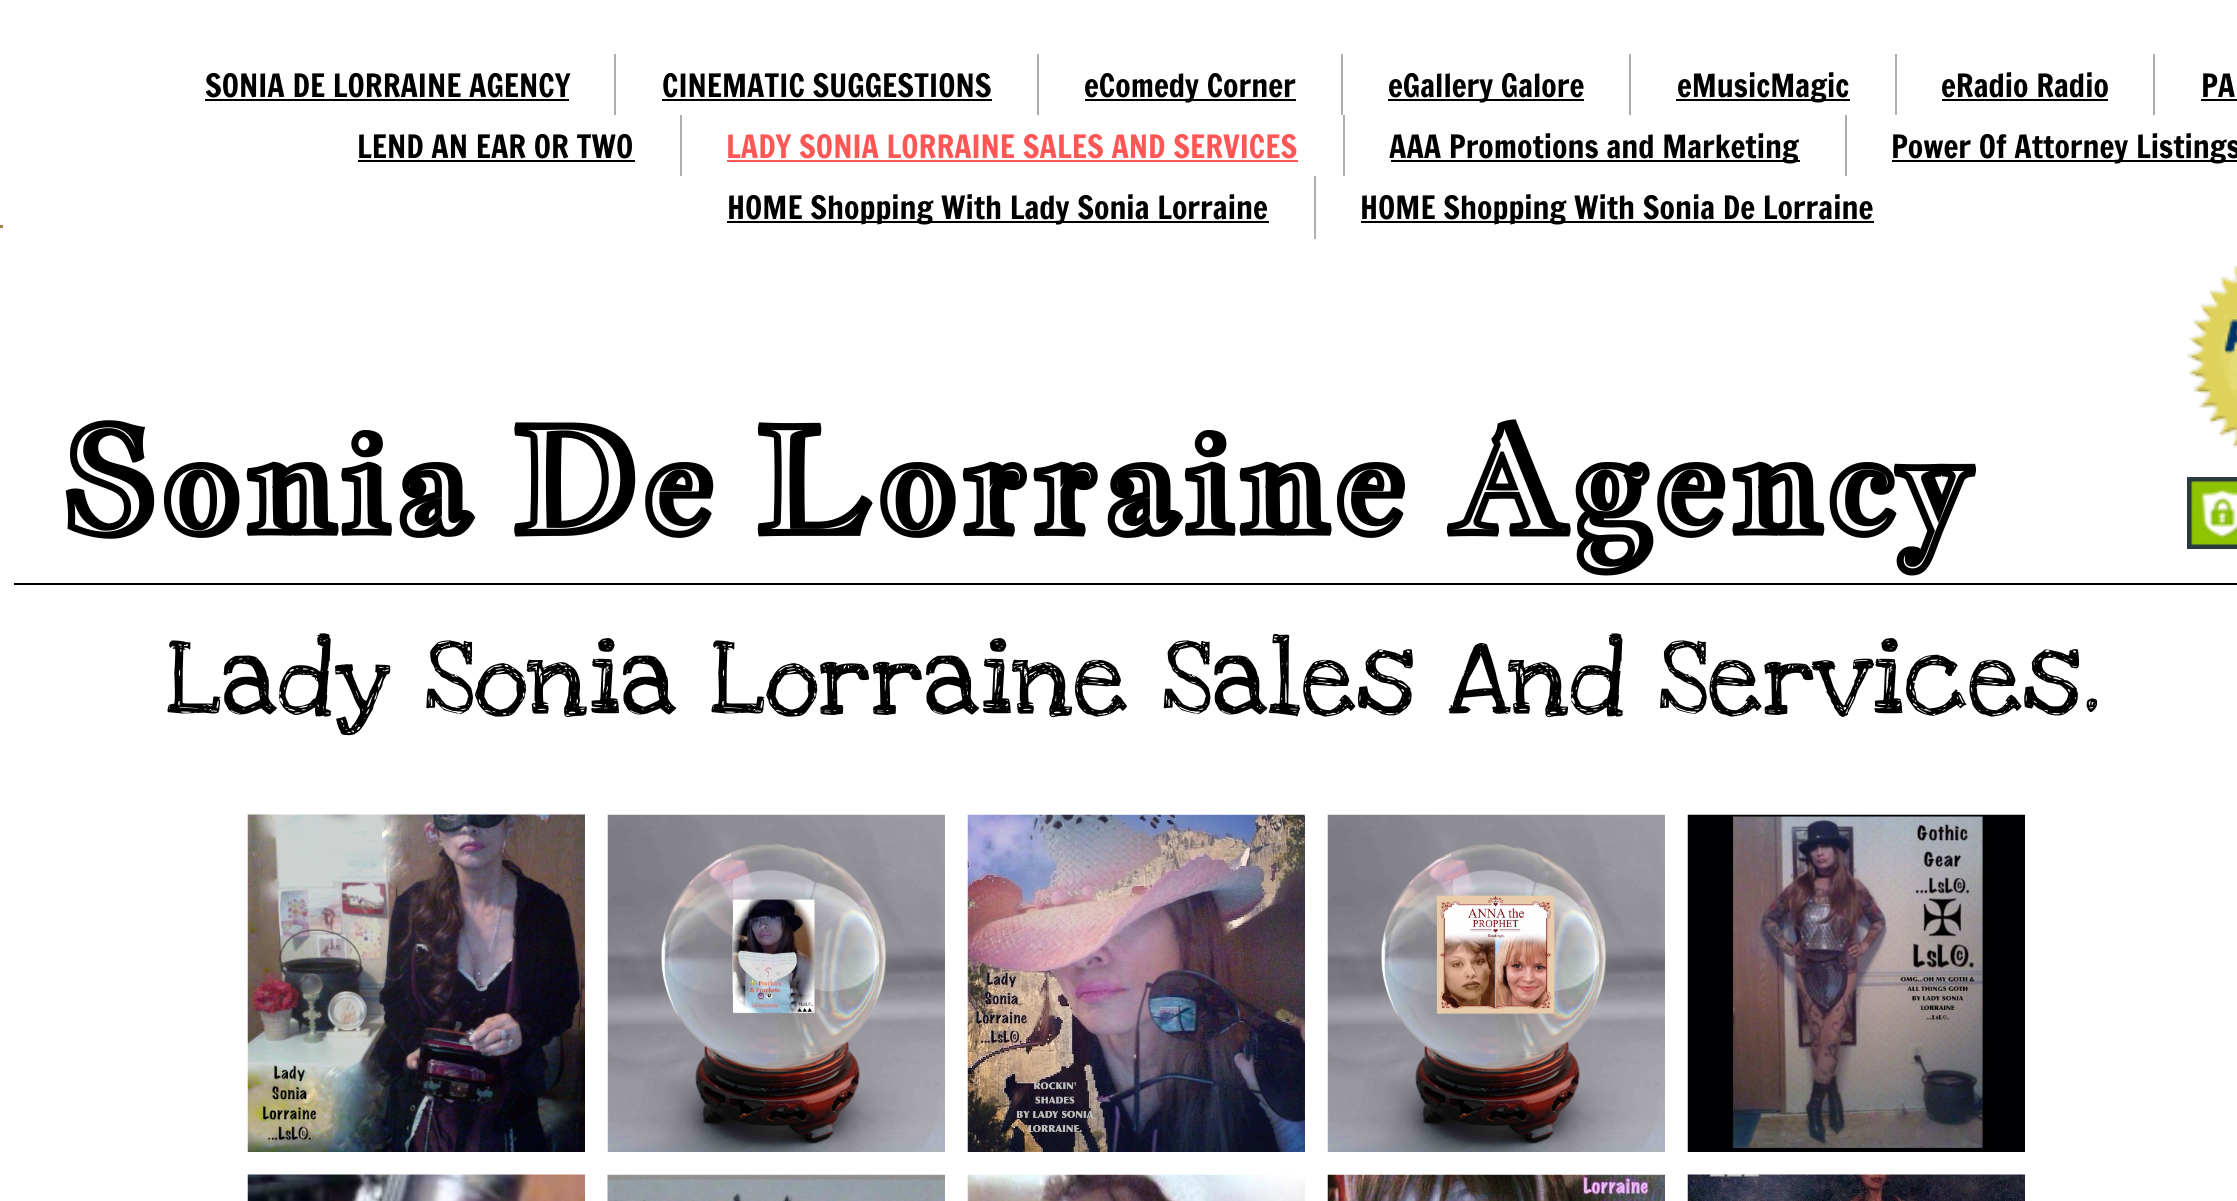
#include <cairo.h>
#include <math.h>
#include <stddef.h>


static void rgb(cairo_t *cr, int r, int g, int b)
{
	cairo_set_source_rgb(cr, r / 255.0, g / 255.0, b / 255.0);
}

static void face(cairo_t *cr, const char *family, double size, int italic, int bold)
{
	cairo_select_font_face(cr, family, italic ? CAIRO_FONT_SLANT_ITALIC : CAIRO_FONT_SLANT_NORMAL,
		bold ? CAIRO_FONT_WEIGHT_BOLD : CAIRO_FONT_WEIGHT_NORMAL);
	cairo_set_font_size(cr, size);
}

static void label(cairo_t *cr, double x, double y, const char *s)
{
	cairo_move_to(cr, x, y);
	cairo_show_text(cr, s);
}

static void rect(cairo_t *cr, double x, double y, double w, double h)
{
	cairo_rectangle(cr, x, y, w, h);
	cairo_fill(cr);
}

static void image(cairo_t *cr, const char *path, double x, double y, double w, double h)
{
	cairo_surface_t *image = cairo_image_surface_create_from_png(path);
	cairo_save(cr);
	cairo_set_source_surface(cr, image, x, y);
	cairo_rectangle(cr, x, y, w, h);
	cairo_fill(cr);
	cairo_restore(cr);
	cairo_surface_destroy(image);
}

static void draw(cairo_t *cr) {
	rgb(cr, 255, 255, 255);
	cairo_paint(cr);
	rgb(cr, 174, 174, 174);
	rect(cr, 614, 54, 2, 61);
	face(cr, "Francois One", 31.5, 0, 0);
	rgb(cr, 0, 0, 0);
	label(cr, 205, 97, "SONIA DE LORRAINE AGENCY");
	rect(cr, 205, 99, 364, 2);
	rgb(cr, 174, 174, 174);
	rect(cr, 1037, 54, 2, 61);
	rgb(cr, 0, 0, 0);
	label(cr, 662, 97, "CINEMATIC SUGGESTIONS");
	rect(cr, 662, 99, 330, 2);
	rgb(cr, 174, 174, 174);
	rect(cr, 1341, 54, 2, 61);
	rgb(cr, 0, 0, 0);
	rect(cr, 1085, 99, 211, 2);
	label(cr, 1084, 97, "eComedy Corner");
	rgb(cr, 174, 174, 174);
	rect(cr, 1629, 54, 2, 61);
	rgb(cr, 0, 0, 0);
	rect(cr, 1388, 99, 196, 2);
	label(cr, 1388, 97, "eGallery Galore");
	rgb(cr, 174, 174, 174);
	rect(cr, 1895, 54, 2, 61);
	rgb(cr, 0, 0, 0);
	rect(cr, 1676, 99, 174, 2);
	label(cr, 1677, 97, "eMusicMagic");
	rgb(cr, 174, 174, 174);
	rect(cr, 2153, 54, 2, 61);
	rgb(cr, 0, 0, 0);
	label(cr, 1941, 97, "eRadio Radio");
	rect(cr, 1942, 99, 166, 2);
	label(cr, 2201, 97, "PA");
	rect(cr, 2201, 99, 36, 2);
	rgb(cr, 174, 174, 174);
	rect(cr, 680, 115, 2, 61);
	rgb(cr, 0, 0, 0);
	label(cr, 357, 158, "LEND AN EAR OR TWO");
	rect(cr, 358, 160, 277, 2);
	rgb(cr, 174, 174, 174);
	rect(cr, 1343, 115, 2, 61);
	rgb(cr, 255, 86, 86);
	label(cr, 726, 158, "LADY SONIA LORRAINE SALES AND SERVICES");
	rect(cr, 727, 160, 571, 2);
	rgb(cr, 174, 174, 174);
	rect(cr, 1845, 115, 2, 61);
	rgb(cr, 0, 0, 0);
	rect(cr, 1391, 160, 409, 2);
	label(cr, 1389, 158, "AAA Promotions and Marketing");
	rect(cr, 1892, 160, 345, 2);
	label(cr, 1891, 158, "Power Of Attorney Listings");
	rgb(cr, 174, 174, 174);
	rect(cr, 1314, 176, 2, 63);
	rgb(cr, 0, 0, 0);
	rect(cr, 727, 221, 542, 2);
	label(cr, 727, 219, "HOME Shopping With Lady Sonia Lorraine");
	rect(cr, 1361, 221, 513, 2);
	label(cr, 1360, 219, "HOME Shopping With Sonia De Lorraine");
	rgb(cr, 163, 129, 84);
	rect(cr, 0, 225, 3, 3);
	image(cr, "image0.png", 2187, 265, 50, 183);
	face(cr, "Jacques Francois Shadow", 144, 0, 1);
	rgb(cr, 0, 0, 0);
	label(cr, 59, 533, "Sonia De Lorraine Agency");
	image(cr, "image1.png", 2187, 477, 50, 72);
	rect(cr, 14, 583, 2223, 2);
	face(cr, "Love Ya Like A Sister", 108, 0, 0);
	label(cr, 167, 713, "Lady Sonia Lorraine Sales And Services.");
	image(cr, "image2.png", 247, 814, 338, 338);
	image(cr, "image3.png", 607, 814, 338, 338);
	image(cr, "image4.png", 967, 814, 338, 338);
	image(cr, "image5.png", 1327, 814, 338, 338);
	image(cr, "image6.png", 1687, 814, 338, 338);
	image(cr, "image7.png", 247, 1174, 338, 27);
	image(cr, "image8.png", 607, 1174, 338, 27);
	image(cr, "image9.png", 967, 1174, 338, 27);
	image(cr, "image10.png", 1327, 1174, 338, 27);
	image(cr, "image11.png", 1687, 1174, 338, 27);
}

int main(void) {
	cairo_surface_t *surface = cairo_image_surface_create(CAIRO_FORMAT_RGB24, 2237, 1201);
	cairo_t *cr = cairo_create(surface);
	cairo_font_options_t *options = cairo_font_options_create();
	cairo_font_options_set_hint_metrics(options, CAIRO_HINT_METRICS_OFF);
	cairo_font_options_set_hint_style(options, CAIRO_HINT_STYLE_NONE);
	cairo_set_font_options(cr, options);
	cairo_set_miter_limit(cr, 4);
	draw(cr);
	cairo_surface_write_to_png(surface, "render.png");
	cairo_font_options_destroy(options);
	cairo_destroy(cr);
	cairo_surface_destroy(surface);
	return 0;
}
